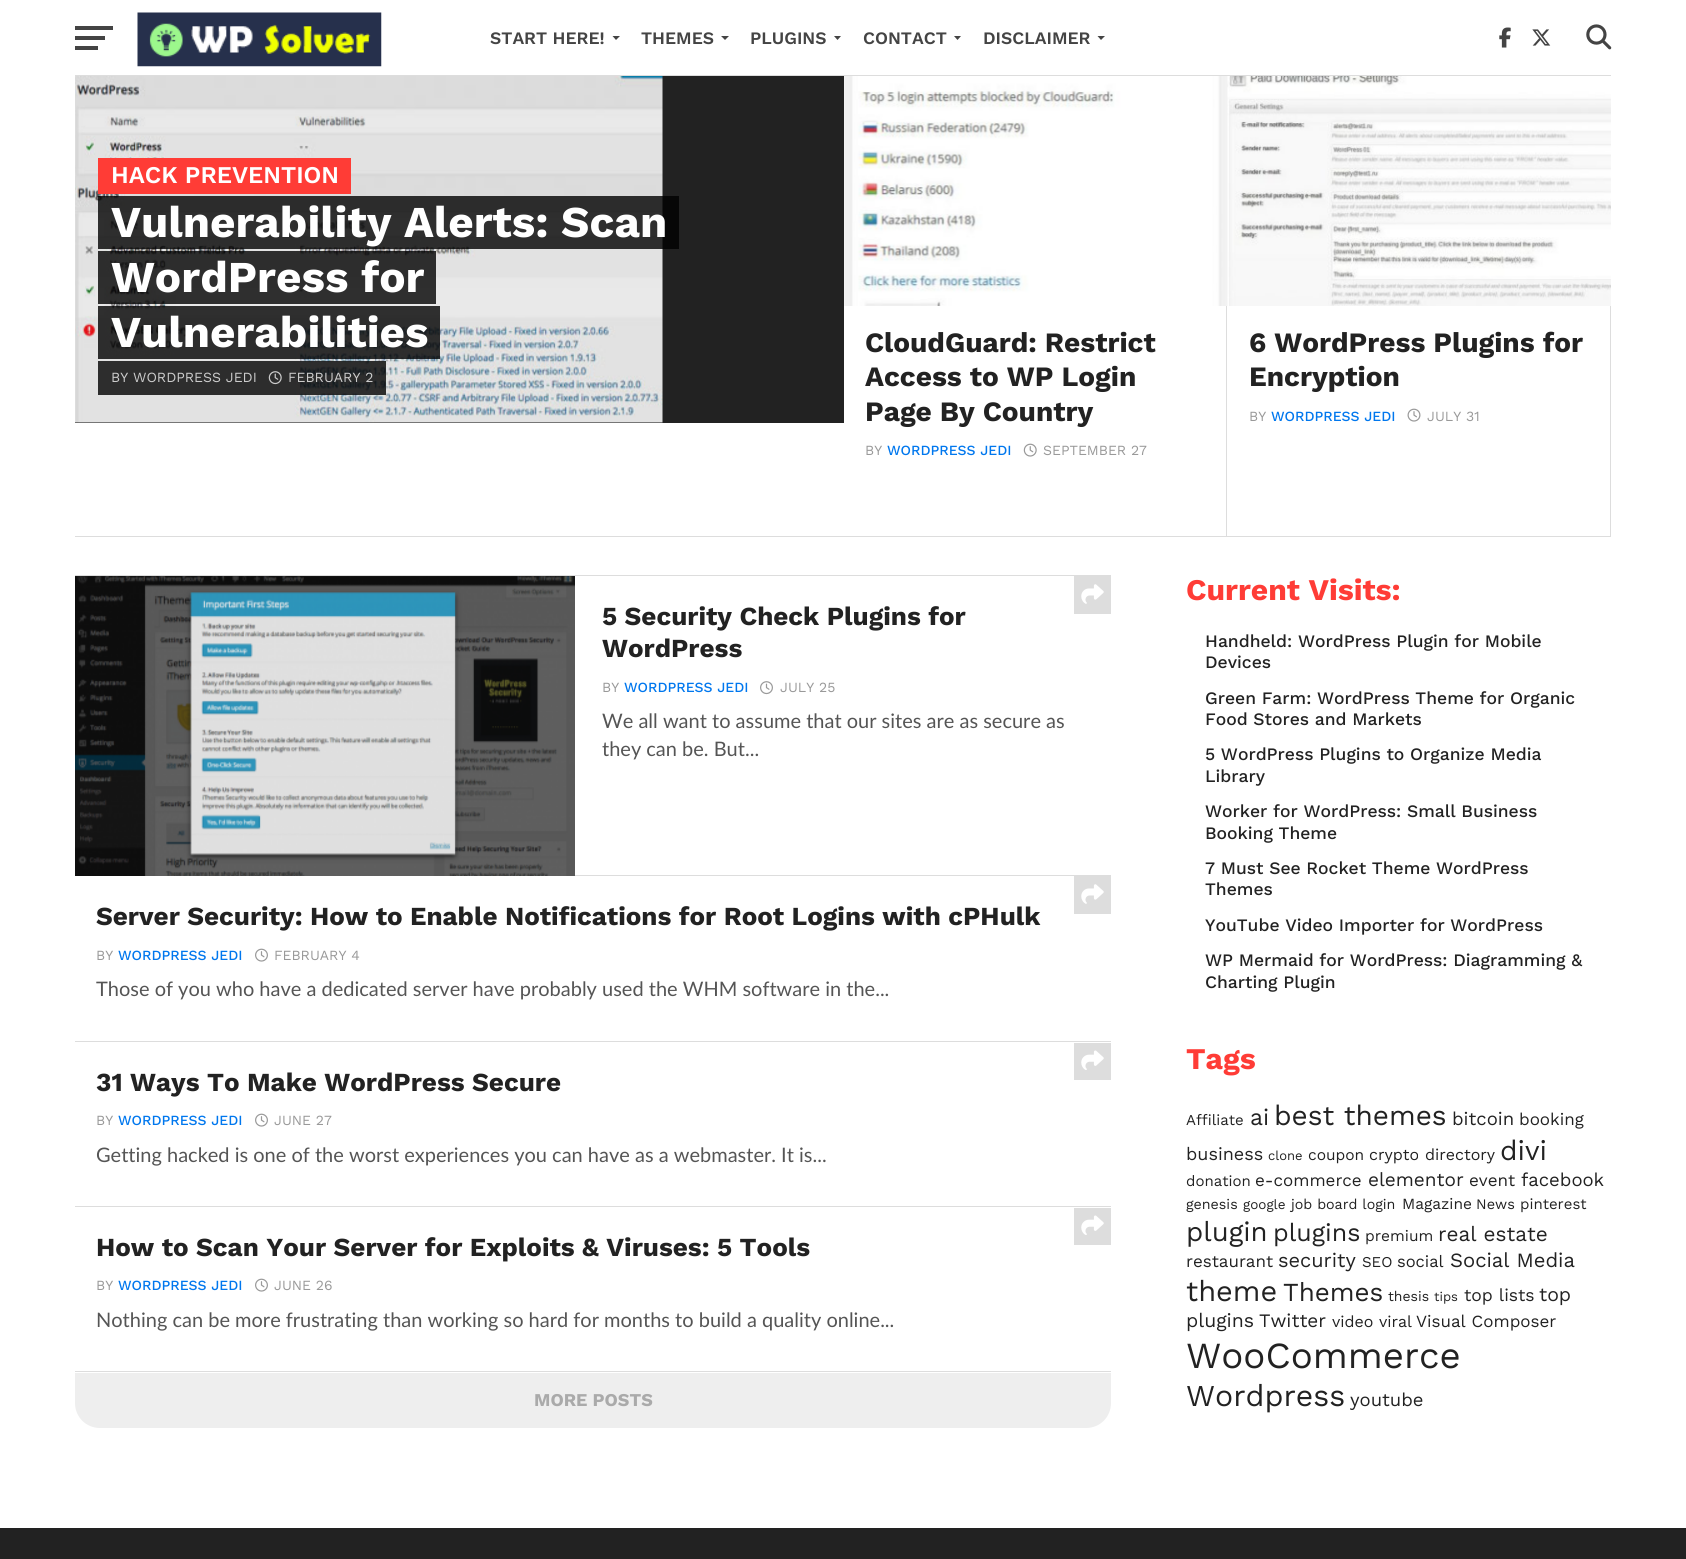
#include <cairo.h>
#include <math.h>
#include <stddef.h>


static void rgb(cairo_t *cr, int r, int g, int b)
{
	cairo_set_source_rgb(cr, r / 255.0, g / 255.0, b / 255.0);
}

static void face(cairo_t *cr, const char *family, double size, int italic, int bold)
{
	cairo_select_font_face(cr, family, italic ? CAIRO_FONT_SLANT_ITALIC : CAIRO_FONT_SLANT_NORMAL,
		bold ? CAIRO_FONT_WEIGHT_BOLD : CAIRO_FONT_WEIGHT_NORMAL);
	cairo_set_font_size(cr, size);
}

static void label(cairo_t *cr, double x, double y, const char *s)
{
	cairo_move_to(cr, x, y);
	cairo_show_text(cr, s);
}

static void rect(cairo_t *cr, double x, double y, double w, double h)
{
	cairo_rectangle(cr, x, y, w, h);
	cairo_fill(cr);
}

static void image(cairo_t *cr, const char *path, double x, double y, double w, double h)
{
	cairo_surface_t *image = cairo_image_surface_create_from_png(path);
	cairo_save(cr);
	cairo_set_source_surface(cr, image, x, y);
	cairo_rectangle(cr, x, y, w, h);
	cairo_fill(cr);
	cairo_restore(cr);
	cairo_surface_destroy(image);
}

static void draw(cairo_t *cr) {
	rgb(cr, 255, 255, 255);
	cairo_paint(cr);
	rgb(cr, 68, 68, 68);
	rect(cr, 75, 26, 38, 4);
	rect(cr, 75, 36, 30, 4);
	rect(cr, 75, 46, 23, 4);
	image(cr, "image0.png", 137, 12, 245, 55);
	face(cr, "Work Sans SemiBold", 17.5, 0, 0);
	label(cr, 490, 44, "START HERE!");
	cairo_new_path(cr);
	cairo_move_to(cr, 612.5, 36);
	cairo_line_to(cr, 620, 36);
	cairo_line_to(cr, 616, 40);
	cairo_close_path(cr);
	cairo_fill(cr);
	label(cr, 641, 44, "THEMES");
	cairo_new_path(cr);
	cairo_move_to(cr, 721, 36);
	cairo_line_to(cr, 729, 36);
	cairo_line_to(cr, 725, 40);
	cairo_close_path(cr);
	cairo_fill(cr);
	label(cr, 750, 44, "PLUGINS");
	cairo_new_path(cr);
	cairo_move_to(cr, 834, 36);
	cairo_line_to(cr, 841, 36);
	cairo_line_to(cr, 837.5, 40);
	cairo_close_path(cr);
	cairo_fill(cr);
	label(cr, 863, 44, "CONTACT");
	cairo_new_path(cr);
	cairo_move_to(cr, 954, 36);
	cairo_line_to(cr, 961, 36);
	cairo_line_to(cr, 957.5, 40);
	cairo_close_path(cr);
	cairo_fill(cr);
	label(cr, 983, 44, "DISCLAIMER");
	cairo_new_path(cr);
	cairo_move_to(cr, 1097.5, 36);
	cairo_line_to(cr, 1105, 36);
	cairo_line_to(cr, 1101, 40);
	cairo_close_path(cr);
	cairo_fill(cr);
	image(cr, "image1.png", 1499, 27, 12, 21);
	image(cr, "image2.png", 1532, 29, 19, 17);
	image(cr, "image3.png", 1586, 24, 26, 26);
	rgb(cr, 221, 221, 221);
	rect(cr, 75, 75, 1536, 1);
	rect(cr, 75, 536, 1536, 1);
	rgb(cr, 34, 34, 34);
	rect(cr, 75, 76, 769, 347);
	image(cr, "image4.png", 75, 76, 588, 347);
	rgb(cr, 255, 60, 54);
	rect(cr, 98, 158, 253, 36);
	face(cr, "Work Sans SemiBold", 24, 0, 0);
	rgb(cr, 255, 255, 255);
	label(cr, 111, 183, "HACK PREVENTION");
	cairo_set_source_rgba(cr, 0, 0, 0, 0.8);
	rect(cr, 110, 196, 556, 53);
	face(cr, "Work Sans", 44, 0, 1);
	rgb(cr, 255, 255, 255);
	label(cr, 111, 237, "Vulnerability Alerts: Scan");
	cairo_set_source_rgba(cr, 0, 0, 0, 0.8);
	cairo_new_path(cr);
	cairo_move_to(cr, 98, 196);
	cairo_line_to(cr, 98, 249);
	cairo_line_to(cr, 654, 249);
	cairo_line_to(cr, 110, 249);
	cairo_line_to(cr, 110, 196);
	cairo_line_to(cr, 654, 196);
	cairo_close_path(cr);
	cairo_fill(cr);
	rgb(cr, 7, 7, 7);
	cairo_new_path(cr);
	cairo_move_to(cr, 123, 196);
	cairo_line_to(cr, 666, 196);
	cairo_line_to(cr, 666, 249);
	cairo_line_to(cr, 123, 249);
	cairo_line_to(cr, 679, 249);
	cairo_line_to(cr, 679, 196);
	cairo_close_path(cr);
	cairo_fill(cr);
	cairo_set_source_rgba(cr, 0, 0, 0, 0.8);
	rect(cr, 110, 251, 314, 53);
	rgb(cr, 255, 255, 255);
	label(cr, 111, 292, "WordPress for");
	cairo_set_source_rgba(cr, 0, 0, 0, 0.8);
	cairo_new_path(cr);
	cairo_move_to(cr, 98, 251);
	cairo_line_to(cr, 98, 304);
	cairo_line_to(cr, 411, 304);
	cairo_line_to(cr, 110, 304);
	cairo_line_to(cr, 110, 251);
	cairo_line_to(cr, 411, 251);
	cairo_close_path(cr);
	cairo_fill(cr);
	cairo_new_path(cr);
	cairo_move_to(cr, 123, 251);
	cairo_line_to(cr, 424, 251);
	cairo_line_to(cr, 424, 304);
	cairo_line_to(cr, 123, 304);
	cairo_line_to(cr, 436, 304);
	cairo_line_to(cr, 436, 251);
	cairo_close_path(cr);
	cairo_fill(cr);
	rect(cr, 110, 306, 318, 53);
	rgb(cr, 255, 255, 255);
	label(cr, 111, 347, "Vulnerabilities");
	cairo_set_source_rgba(cr, 0, 0, 0, 0.8);
	cairo_new_path(cr);
	cairo_move_to(cr, 98, 306);
	cairo_line_to(cr, 98, 359);
	cairo_line_to(cr, 415, 359);
	cairo_line_to(cr, 110, 359);
	cairo_line_to(cr, 110, 306);
	cairo_line_to(cr, 415, 306);
	cairo_close_path(cr);
	cairo_fill(cr);
	cairo_new_path(cr);
	cairo_move_to(cr, 123, 306);
	cairo_line_to(cr, 428, 306);
	cairo_line_to(cr, 428, 359);
	cairo_line_to(cr, 123, 359);
	cairo_line_to(cr, 440, 359);
	cairo_line_to(cr, 440, 306);
	cairo_close_path(cr);
	cairo_fill(cr);
	rect(cr, 98, 361, 288, 34);
	face(cr, "Work Sans", 14, 0, 0);
	rgb(cr, 204, 204, 204);
	label(cr, 111, 382, "BY WORDPRESS JEDI");
	image(cr, "image5.png", 268, 371, 14, 14);
	label(cr, 288, 382, "FEBRUARY 2");
	image(cr, "image6.png", 844, 76, 384, 230);
	rgb(cr, 221, 221, 221);
	rect(cr, 1226, 306, 1, 230);
	face(cr, "Work Sans", 28, 0, 1);
	rgb(cr, 34, 34, 34);
	label(cr, 865, 352, "CloudGuard: Restrict");
	label(cr, 865, 386, "Access to WP Login");
	label(cr, 865, 421, "Page By Country");
	face(cr, "Work Sans", 14, 0, 0);
	rgb(cr, 153, 153, 153);
	label(cr, 865, 455, "BY");
	face(cr, "Work Sans Medium", 14, 0, 0);
	rgb(cr, 0, 119, 238);
	label(cr, 887, 455, "WORDPRESS JEDI");
	image(cr, "image7.png", 1023, 443, 14, 14);
	face(cr, "Work Sans", 14, 0, 0);
	rgb(cr, 153, 153, 153);
	label(cr, 1043, 455, "SEPTEMBER 27");
	image(cr, "image8.png", 1227, 76, 384, 230);
	rgb(cr, 221, 221, 221);
	rect(cr, 1610, 306, 1, 230);
	face(cr, "Work Sans", 28, 0, 1);
	rgb(cr, 34, 34, 34);
	label(cr, 1249, 352, "6 WordPress Plugins for");
	label(cr, 1249, 386, "Encryption");
	face(cr, "Work Sans", 14, 0, 0);
	rgb(cr, 153, 153, 153);
	label(cr, 1249, 421, "BY");
	face(cr, "Work Sans Medium", 14, 0, 0);
	rgb(cr, 0, 119, 238);
	label(cr, 1271, 421, "WORDPRESS JEDI");
	image(cr, "image9.png", 1407, 408, 14, 14);
	face(cr, "Work Sans", 14, 0, 0);
	rgb(cr, 153, 153, 153);
	label(cr, 1427, 421, "JULY 31");
	rgb(cr, 221, 221, 221);
	rect(cr, 75, 575, 1036, 1);
	rgb(cr, 34, 34, 34);
	rect(cr, 75, 576, 500, 300);
	image(cr, "image10.png", 75, 576, 500, 300);
	rgb(cr, 221, 221, 221);
	rect(cr, 575, 875, 536, 1);
	rect(cr, 1074, 576, 37, 38);
	image(cr, "image11.png", 1081, 584, 23, 20);
	face(cr, "Work Sans", 26, 0, 1);
	rgb(cr, 34, 34, 34);
	label(cr, 602, 625, "5 Security Check Plugins for");
	label(cr, 602, 657, "WordPress");
	face(cr, "Work Sans", 14, 0, 0);
	rgb(cr, 153, 153, 153);
	label(cr, 602, 692, "BY");
	face(cr, "Work Sans Medium", 14, 0, 0);
	rgb(cr, 0, 119, 238);
	label(cr, 624, 692, "WORDPRESS JEDI");
	image(cr, "image12.png", 760, 681, 13, 14);
	face(cr, "Work Sans", 14, 0, 0);
	rgb(cr, 153, 153, 153);
	label(cr, 780, 692, "JULY 25");
	face(cr, "Lato", 20, 0, 0);
	rgb(cr, 85, 85, 85);
	label(cr, 602, 728, "We all want to assume that our sites are as secure as");
	label(cr, 602, 756, "they can be. But...");
	rgb(cr, 221, 221, 221);
	rect(cr, 75, 1041, 1036, 1);
	rect(cr, 1074, 876, 37, 38);
	image(cr, "image11.png", 1081, 884, 23, 20);
	face(cr, "Work Sans", 26, 0, 1);
	rgb(cr, 34, 34, 34);
	label(cr, 96, 925, "Server Security: How to Enable Notifications for Root Logins with cPHulk");
	face(cr, "Work Sans", 14, 0, 0);
	rgb(cr, 153, 153, 153);
	label(cr, 96, 960, "BY");
	face(cr, "Work Sans Medium", 14, 0, 0);
	rgb(cr, 0, 119, 238);
	label(cr, 118, 960, "WORDPRESS JEDI");
	image(cr, "image13.png", 255, 948, 13, 14);
	face(cr, "Work Sans", 14, 0, 0);
	rgb(cr, 153, 153, 153);
	label(cr, 274, 960, "FEBRUARY 4");
	face(cr, "Lato", 20, 0, 0);
	rgb(cr, 85, 85, 85);
	label(cr, 96, 996, "Those of you who have a dedicated server have probably used the WHM software in the...");
	rgb(cr, 221, 221, 221);
	rect(cr, 75, 1206, 1036, 1);
	rect(cr, 1074, 1043, 37, 37);
	image(cr, "image14.png", 1081, 1050, 23, 20);
	face(cr, "Work Sans", 26, 0, 1);
	rgb(cr, 34, 34, 34);
	label(cr, 96, 1091, "31 Ways To Make WordPress Secure");
	face(cr, "Work Sans", 14, 0, 0);
	rgb(cr, 153, 153, 153);
	label(cr, 96, 1125, "BY");
	face(cr, "Work Sans Medium", 14, 0, 0);
	rgb(cr, 0, 119, 238);
	label(cr, 118, 1125, "WORDPRESS JEDI");
	image(cr, "image13.png", 255, 1113, 13, 14);
	face(cr, "Work Sans", 14, 0, 0);
	rgb(cr, 153, 153, 153);
	label(cr, 274, 1125, "JUNE 27");
	face(cr, "Lato", 20, 0, 0);
	rgb(cr, 85, 85, 85);
	label(cr, 96, 1162, "Getting hacked is one of the worst experiences you can have as a webmaster. It is...");
	rgb(cr, 221, 221, 221);
	rect(cr, 75, 1371, 1036, 1);
	rect(cr, 1074, 1208, 37, 37);
	image(cr, "image14.png", 1081, 1215, 23, 20);
	face(cr, "Work Sans", 26, 0, 1);
	rgb(cr, 34, 34, 34);
	label(cr, 96, 1256, "How to Scan Your Server for Exploits & Viruses: 5 Tools");
	face(cr, "Work Sans", 14, 0, 0);
	rgb(cr, 153, 153, 153);
	label(cr, 96, 1290, "BY");
	face(cr, "Work Sans Medium", 14, 0, 0);
	rgb(cr, 0, 119, 238);
	label(cr, 118, 1290, "WORDPRESS JEDI");
	image(cr, "image13.png", 255, 1278, 13, 14);
	face(cr, "Work Sans", 14, 0, 0);
	rgb(cr, 153, 153, 153);
	label(cr, 274, 1290, "JUNE 26");
	face(cr, "Lato", 20, 0, 0);
	rgb(cr, 85, 85, 85);
	label(cr, 96, 1327, "Nothing can be more frustrating than working so hard for months to build a quality online...");
	rgb(cr, 238, 238, 238);
	cairo_new_path(cr);
	cairo_move_to(cr, 75, 1373);
	cairo_line_to(cr, 1111, 1373);
	cairo_line_to(cr, 1111, 1403);
	cairo_curve_to(cr, 1111, 1417, 1100, 1428, 1086, 1428);
	cairo_line_to(cr, 100, 1428);
	cairo_curve_to(cr, 86, 1428, 75, 1417, 75, 1403);
	cairo_close_path(cr);
	cairo_fill(cr);
	face(cr, "Work Sans", 18, 0, 1);
	rgb(cr, 170, 170, 170);
	label(cr, 534, 1406, "MORE POSTS");
	face(cr, "Work Sans", 30, 0, 1);
	rgb(cr, 255, 60, 54);
	label(cr, 1186, 600, "Current Visits:");
	face(cr, "Work Sans Medium", 17.5, 0, 0);
	rgb(cr, 34, 34, 34);
	label(cr, 1205, 647, "Handheld: WordPress Plugin for Mobile");
	label(cr, 1205, 668, "Devices");
	label(cr, 1205, 704, "Green Farm: WordPress Theme for Organic");
	label(cr, 1205, 725, "Food Stores and Markets");
	label(cr, 1205, 760, "5 WordPress Plugins to Organize Media");
	label(cr, 1205, 782, "Library");
	label(cr, 1205, 817, "Worker for WordPress: Small Business");
	label(cr, 1205, 839, "Booking Theme");
	label(cr, 1205, 874, "7 Must See Rocket Theme WordPress");
	label(cr, 1205, 895, "Themes");
	label(cr, 1205, 931, "YouTube Video Importer for WordPress");
	label(cr, 1205, 966, "WP Mermaid for WordPress: Diagramming &");
	label(cr, 1205, 988, "Charting Plugin");
	face(cr, "Work Sans", 30, 0, 1);
	rgb(cr, 255, 60, 54);
	label(cr, 1186, 1069, "Tags");
	face(cr, "Work Sans", 15, 0, 0);
	rgb(cr, 34, 34, 34);
	label(cr, 1186, 1125, "Affiliate");
	face(cr, "Work Sans", 23, 0, 0);
	label(cr, 1250, 1125, "ai");
	face(cr, "Work Sans", 28, 0, 0);
	label(cr, 1274, 1125, "best themes");
	face(cr, "Work Sans", 18.5, 0, 0);
	label(cr, 1452, 1125, "bitcoin");
	face(cr, "Work Sans", 17, 0, 0);
	label(cr, 1519, 1125, "booking");
	face(cr, "Work Sans", 18, 0, 0);
	label(cr, 1186, 1160, "business");
	face(cr, "Work Sans", 13, 0, 0);
	label(cr, 1268, 1160, "clone");
	face(cr, "Work Sans", 15.5, 0, 0);
	label(cr, 1308, 1160, "coupon");
	face(cr, "Work Sans", 16, 0, 0);
	label(cr, 1369, 1160, "crypto");
	label(cr, 1425, 1160, "directory");
	face(cr, "Work Sans", 28, 0, 0);
	label(cr, 1500, 1160, "divi");
	face(cr, "Work Sans", 15, 0, 0);
	label(cr, 1186, 1186, "donation");
	face(cr, "Work Sans", 17, 0, 0);
	label(cr, 1255, 1186, "e-commerce");
	face(cr, "Work Sans", 19, 0, 0);
	label(cr, 1368, 1186, "elementor");
	face(cr, "Work Sans", 17, 0, 0);
	label(cr, 1469, 1186, "event");
	face(cr, "Work Sans", 18.5, 0, 0);
	label(cr, 1521, 1186, "facebook");
	face(cr, "Work Sans", 14.25, 0, 0);
	label(cr, 1186, 1209, "genesis");
	face(cr, "Work Sans", 13.5, 0, 0);
	label(cr, 1243, 1209, "google");
	face(cr, "Work Sans", 14.25, 0, 0);
	label(cr, 1291, 1209, "job board login");
	face(cr, "Work Sans", 15.5, 0, 0);
	label(cr, 1402, 1209, "Magazine");
	face(cr, "Work Sans", 14.5, 0, 0);
	label(cr, 1476, 1209, "News");
	face(cr, "Work Sans", 15, 0, 0);
	label(cr, 1520, 1209, "pinterest");
	face(cr, "Work Sans", 27.5, 0, 0);
	label(cr, 1186, 1241, "plugin");
	face(cr, "Work Sans", 25, 0, 0);
	label(cr, 1273, 1241, "plugins");
	face(cr, "Work Sans", 15.5, 0, 0);
	label(cr, 1365, 1241, "premium");
	face(cr, "Work Sans", 20.75, 0, 0);
	label(cr, 1438, 1241, "real estate");
	face(cr, "Work Sans", 17, 0, 0);
	label(cr, 1186, 1267, "restaurant");
	face(cr, "Work Sans", 20, 0, 0);
	label(cr, 1278, 1267, "security");
	face(cr, "Work Sans", 15, 0, 0);
	label(cr, 1362, 1267, "SEO");
	face(cr, "Work Sans", 16.5, 0, 0);
	label(cr, 1397, 1267, "social");
	face(cr, "Work Sans", 20.25, 0, 0);
	label(cr, 1450, 1267, "Social Media");
	face(cr, "Work Sans", 29, 0, 0);
	label(cr, 1186, 1301, "theme");
	face(cr, "Work Sans", 26, 0, 0);
	label(cr, 1283, 1301, "Themes");
	face(cr, "Work Sans", 14, 0, 0);
	label(cr, 1388, 1301, "thesis");
	face(cr, "Work Sans", 13, 0, 0);
	label(cr, 1434, 1301, "tips");
	face(cr, "Work Sans", 17.5, 0, 0);
	label(cr, 1464, 1301, "top lists");
	face(cr, "Work Sans", 19.5, 0, 0);
	label(cr, 1539, 1301, "top");
	label(cr, 1186, 1327, "plugins");
	face(cr, "Work Sans", 19, 0, 0);
	label(cr, 1259, 1327, "Twitter");
	face(cr, "Work Sans", 16, 0, 0);
	label(cr, 1332, 1327, "video viral");
	face(cr, "Work Sans", 17, 0, 0);
	label(cr, 1416, 1327, "Visual Composer");
	face(cr, "Work Sans", 36.75, 0, 0);
	label(cr, 1186, 1368, "WooCommerce");
	face(cr, "Work Sans", 30.25, 0, 0);
	label(cr, 1186, 1406, "Wordpress");
	face(cr, "Work Sans", 18.5, 0, 0);
	label(cr, 1350, 1406, "youtube");
	rect(cr, 0, 1528, 1686, 31);
}

int main(void) {
	cairo_surface_t *surface = cairo_image_surface_create(CAIRO_FORMAT_RGB24, 1686, 1559);
	cairo_t *cr = cairo_create(surface);
	cairo_font_options_t *options = cairo_font_options_create();
	cairo_font_options_set_hint_metrics(options, CAIRO_HINT_METRICS_OFF);
	cairo_font_options_set_hint_style(options, CAIRO_HINT_STYLE_NONE);
	cairo_set_font_options(cr, options);
	cairo_set_miter_limit(cr, 4);
	draw(cr);
	cairo_surface_write_to_png(surface, "render.png");
	cairo_font_options_destroy(options);
	cairo_destroy(cr);
	cairo_surface_destroy(surface);
	return 0;
}
